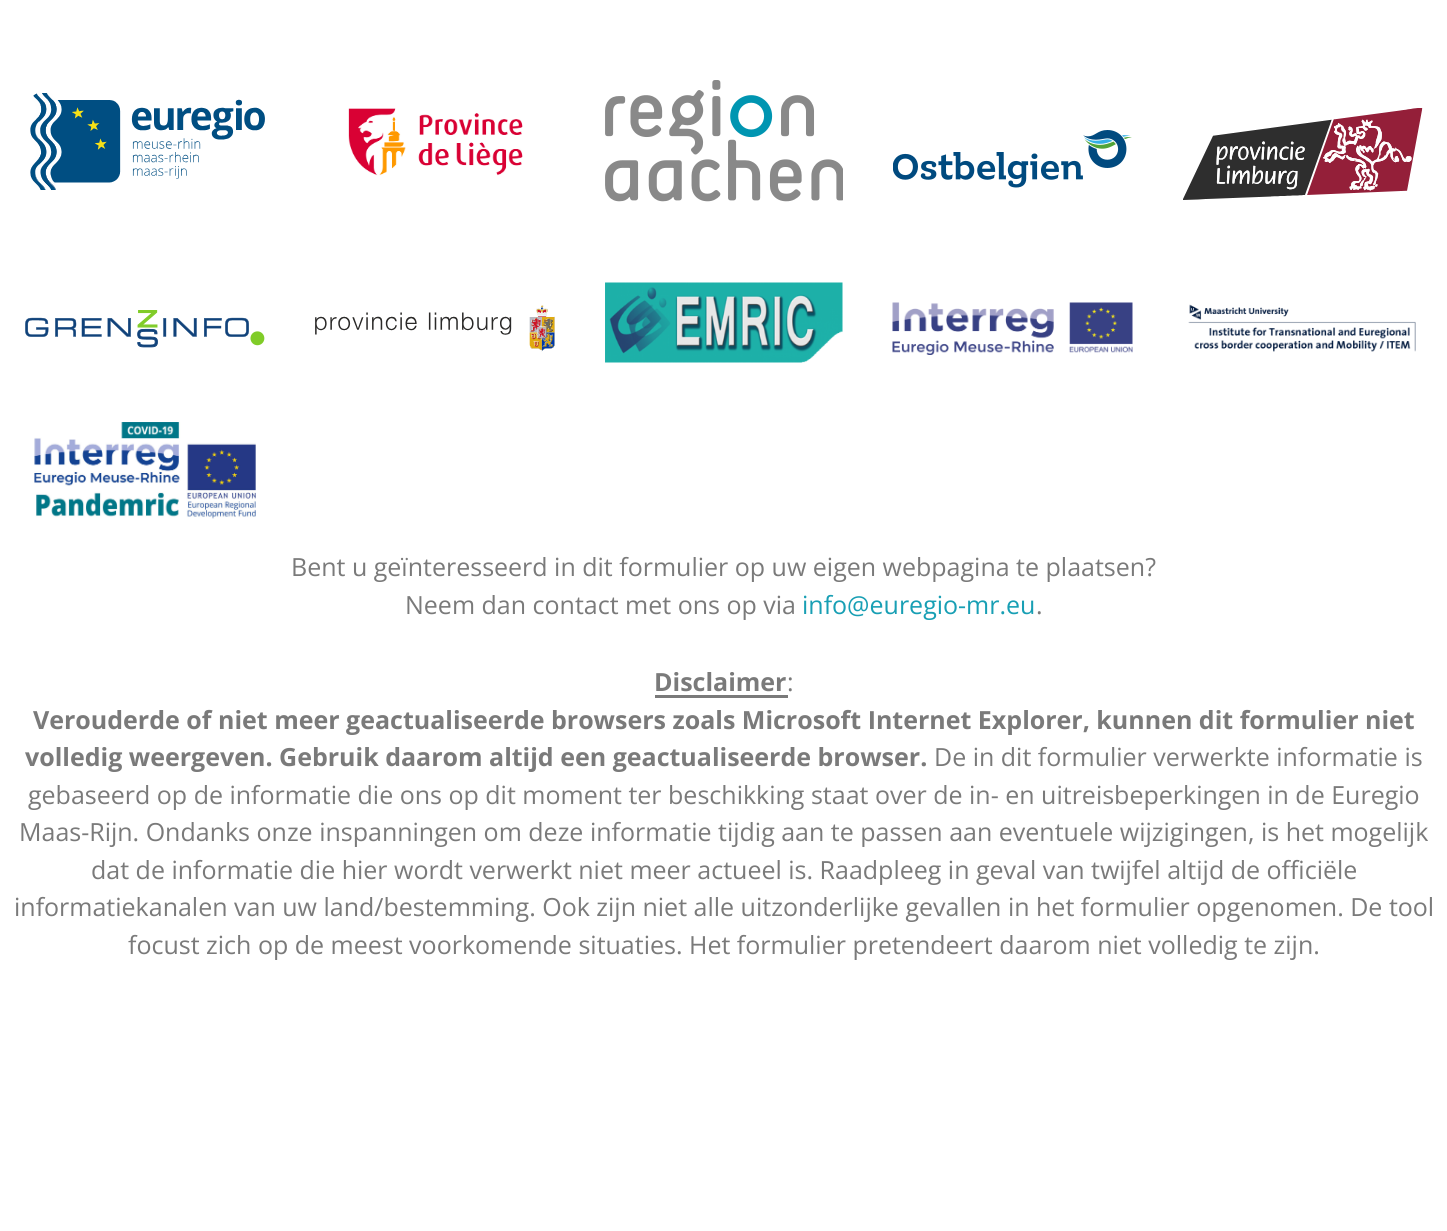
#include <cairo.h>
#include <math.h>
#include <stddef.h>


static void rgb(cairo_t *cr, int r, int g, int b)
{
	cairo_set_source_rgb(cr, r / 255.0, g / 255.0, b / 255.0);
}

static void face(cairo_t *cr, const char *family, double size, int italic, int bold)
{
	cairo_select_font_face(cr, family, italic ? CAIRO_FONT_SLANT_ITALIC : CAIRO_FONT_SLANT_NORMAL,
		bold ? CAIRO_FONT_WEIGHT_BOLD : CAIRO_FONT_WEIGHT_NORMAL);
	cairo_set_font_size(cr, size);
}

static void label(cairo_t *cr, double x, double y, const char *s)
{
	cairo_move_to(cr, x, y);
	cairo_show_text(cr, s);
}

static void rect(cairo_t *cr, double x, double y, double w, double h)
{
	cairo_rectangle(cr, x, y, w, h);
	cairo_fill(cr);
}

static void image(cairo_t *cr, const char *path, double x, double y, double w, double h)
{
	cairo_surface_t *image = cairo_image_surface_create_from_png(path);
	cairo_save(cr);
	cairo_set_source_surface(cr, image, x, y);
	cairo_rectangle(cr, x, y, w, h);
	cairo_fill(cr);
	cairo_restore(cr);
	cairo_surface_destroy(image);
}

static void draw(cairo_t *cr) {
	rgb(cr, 255, 255, 255);
	cairo_paint(cr);
	image(cr, "image0.png", 30, 93, 235, 97);
	image(cr, "image1.png", 348, 108, 175, 68);
	image(cr, "image2.png", 605, 80, 238, 122);
	image(cr, "image3.png", 893, 130, 239, 58);
	image(cr, "image4.png", 1183, 108, 240, 92);
	image(cr, "image5.png", 25, 310, 240, 38);
	image(cr, "image6.png", 315, 305, 240, 47);
	image(cr, "image7.png", 605, 282, 238, 81);
	image(cr, "image8.png", 892, 302, 241, 53);
	image(cr, "image9.png", 1188, 304, 228, 48);
	image(cr, "image10.png", 34, 422, 222, 97);
	face(cr, "Open Sans", 25, 0, 0);
	rgb(cr, 122, 122, 122);
	label(cr, 291, 576, "Bent u geïnteresseerd in dit formulier op uw eigen webpagina te plaatsen?");
	label(cr, 405, 614, "Neem dan contact met ons op via");
	rgb(cr, 24, 159, 180);
	label(cr, 802, 614, "info@euregio-mr.eu");
	rgb(cr, 122, 122, 122);
	label(cr, 1036, 614, ".");
	face(cr, "Open Sans", 25, 0, 1);
	label(cr, 654, 691, "Disclaimer");
	rect(cr, 655, 695, 133, 3);
	face(cr, "Open Sans", 25, 0, 0);
	label(cr, 787, 691, ":");
	face(cr, "Open Sans", 25, 0, 1);
	label(cr, 33, 729, "Verouderde of niet meer geactualiseerde browsers zoals Microsoft Internet Explorer, kunnen dit formulier niet");
	label(cr, 25, 766, "volledig weergeven. Gebruik daarom altijd een geactualiseerde browser.");
	face(cr, "Open Sans", 25, 0, 0);
	label(cr, 934, 766, "De in dit formulier verwerkte informatie is");
	label(cr, 28, 804, "gebaseerd op de informatie die ons op dit moment ter beschikking staat over de in- en uitreisbeperkingen in de Euregio");
	label(cr, 19, 841, "Maas-Rijn. Ondanks onze inspanningen om deze informatie tijdig aan te passen aan eventuele wijzigingen, is het mogelijk");
	label(cr, 91, 879, "dat de informatie die hier wordt verwerkt niet meer actueel is. Raadpleeg in geval van twijfel altijd de officiële");
	label(cr, 14, 916, "informatiekanalen van uw land/bestemming. Ook zijn niet alle uitzonderlijke gevallen in het formulier opgenomen. De tool");
	label(cr, 128, 954, "focust zich op de meest voorkomende situaties. Het formulier pretendeert daarom niet volledig te zijn.");
}

int main(void) {
	cairo_surface_t *surface = cairo_image_surface_create(CAIRO_FORMAT_RGB24, 1447, 1231);
	cairo_t *cr = cairo_create(surface);
	cairo_font_options_t *options = cairo_font_options_create();
	cairo_font_options_set_hint_metrics(options, CAIRO_HINT_METRICS_OFF);
	cairo_font_options_set_hint_style(options, CAIRO_HINT_STYLE_NONE);
	cairo_set_font_options(cr, options);
	cairo_set_miter_limit(cr, 4);
	draw(cr);
	cairo_surface_write_to_png(surface, "render.png");
	cairo_font_options_destroy(options);
	cairo_destroy(cr);
	cairo_surface_destroy(surface);
	return 0;
}
